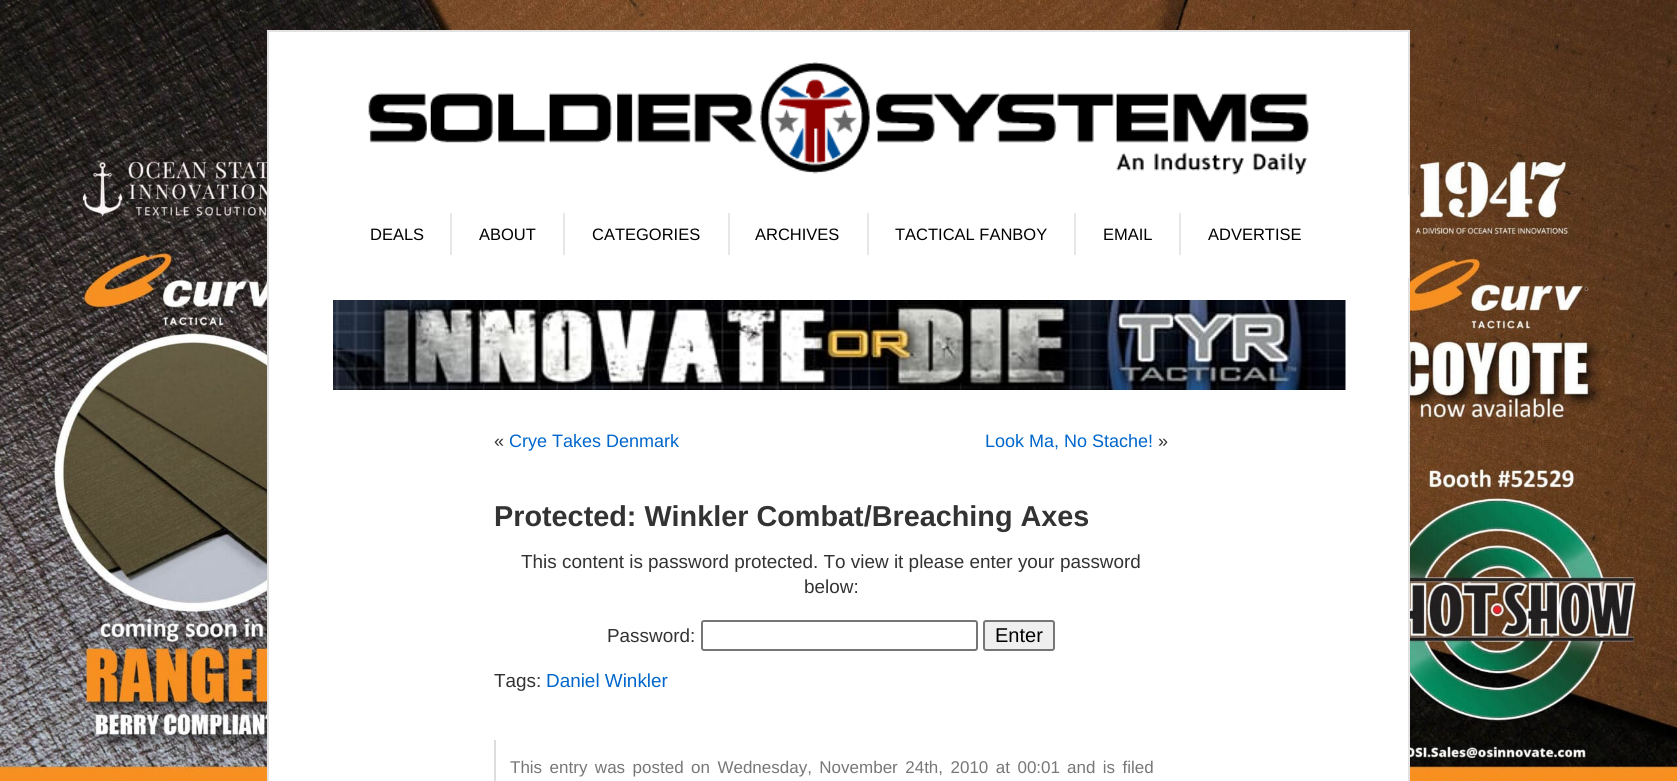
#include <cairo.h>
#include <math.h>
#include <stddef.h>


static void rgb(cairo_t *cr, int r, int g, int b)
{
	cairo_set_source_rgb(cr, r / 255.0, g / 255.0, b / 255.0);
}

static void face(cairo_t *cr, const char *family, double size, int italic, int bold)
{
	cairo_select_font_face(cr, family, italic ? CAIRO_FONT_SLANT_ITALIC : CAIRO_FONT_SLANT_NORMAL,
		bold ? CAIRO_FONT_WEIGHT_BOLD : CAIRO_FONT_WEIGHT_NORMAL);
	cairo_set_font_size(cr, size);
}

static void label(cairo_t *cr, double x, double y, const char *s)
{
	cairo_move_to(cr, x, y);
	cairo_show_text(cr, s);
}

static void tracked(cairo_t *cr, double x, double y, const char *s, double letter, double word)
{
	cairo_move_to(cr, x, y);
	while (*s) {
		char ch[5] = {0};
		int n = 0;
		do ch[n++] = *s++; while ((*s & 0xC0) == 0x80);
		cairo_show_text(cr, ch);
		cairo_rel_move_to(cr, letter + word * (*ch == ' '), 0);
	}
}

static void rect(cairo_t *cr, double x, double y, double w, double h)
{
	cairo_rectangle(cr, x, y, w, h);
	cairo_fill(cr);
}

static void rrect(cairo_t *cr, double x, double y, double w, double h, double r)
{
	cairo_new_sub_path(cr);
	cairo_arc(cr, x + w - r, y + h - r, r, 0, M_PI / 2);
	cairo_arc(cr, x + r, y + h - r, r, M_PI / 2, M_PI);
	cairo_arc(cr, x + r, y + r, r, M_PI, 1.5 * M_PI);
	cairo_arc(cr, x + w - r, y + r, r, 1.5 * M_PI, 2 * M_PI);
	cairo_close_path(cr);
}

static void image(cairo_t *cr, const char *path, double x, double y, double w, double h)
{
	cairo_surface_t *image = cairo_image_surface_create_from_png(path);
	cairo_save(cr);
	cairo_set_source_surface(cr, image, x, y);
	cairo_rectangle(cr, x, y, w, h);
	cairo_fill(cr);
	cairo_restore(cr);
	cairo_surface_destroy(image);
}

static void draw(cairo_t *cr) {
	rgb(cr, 255, 255, 255);
	cairo_paint(cr);
	image(cr, "image0.png", 0, 0, 1677, 781);
	rgb(cr, 255, 255, 255);
	cairo_rectangle(cr, 268, 31, 1141, 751);
	cairo_fill_preserve(cr);
	rgb(cr, 226, 226, 226);
	cairo_stroke(cr);
	image(cr, "image1.png", 368, 62, 941, 113);
	rgb(cr, 255, 255, 255);
	rect(cr, 1408, 195, 1, 83);
	face(cr, "Liberation Sans", 16.5, 0, 0);
	rgb(cr, 0, 0, 0);
	label(cr, 370, 240, "DEALS");
	rgb(cr, 231, 231, 231);
	rect(cr, 450, 213, 2, 42);
	rgb(cr, 0, 0, 0);
	label(cr, 479, 240, "ABOUT");
	rgb(cr, 231, 231, 231);
	rect(cr, 563, 213, 2, 42);
	rgb(cr, 0, 0, 0);
	label(cr, 592, 240, "CATEGORIES");
	rgb(cr, 231, 231, 231);
	rect(cr, 728, 213, 2, 42);
	rgb(cr, 0, 0, 0);
	label(cr, 755, 240, "ARCHIVES");
	rgb(cr, 231, 231, 231);
	rect(cr, 867, 213, 2, 42);
	rgb(cr, 0, 0, 0);
	label(cr, 895, 240, "TACTICAL FANBOY");
	rgb(cr, 231, 231, 231);
	rect(cr, 1074, 213, 2, 42);
	rgb(cr, 0, 0, 0);
	label(cr, 1103, 240, "EMAIL");
	rgb(cr, 231, 231, 231);
	rect(cr, 1179, 213, 2, 42);
	rgb(cr, 0, 0, 0);
	label(cr, 1208, 240, "ADVERTISE");
	image(cr, "image2.png", 333, 300, 1013, 90);
	face(cr, "Liberation Sans", 18, 0, 0);
	rgb(cr, 51, 51, 51);
	label(cr, 494, 447, "«");
	rgb(cr, 0, 102, 204);
	label(cr, 509, 447, "Crye Takes Denmark");
	label(cr, 985, 447, "Look Ma, No Stache!");
	rgb(cr, 51, 51, 51);
	label(cr, 1158, 447, "»");
	face(cr, "Liberation Sans", 28.8, 0, 1);
	label(cr, 494, 526, "Protected: Winkler Combat/Breaching Axes");
	face(cr, "Liberation Sans", 18.9, 0, 0);
	label(cr, 521, 568, "This content is password protected. To view it please enter your password");
	label(cr, 804, 593, "below:");
	label(cr, 607, 642, "Password:");
	rrect(cr, 702, 621, 275, 29, 2);
	rgb(cr, 118, 118, 118);
	cairo_stroke(cr);
	rgb(cr, 239, 239, 239);
	rrect(cr, 984, 621, 70, 29, 2);
	cairo_fill_preserve(cr);
	rgb(cr, 118, 118, 118);
	cairo_stroke(cr);
	face(cr, "Liberation Sans", 20, 0, 0);
	rgb(cr, 0, 0, 0);
	label(cr, 995, 642, "Enter");
	face(cr, "Liberation Sans", 18.9, 0, 0);
	rgb(cr, 51, 51, 51);
	label(cr, 494, 687, "Tags:");
	rgb(cr, 0, 102, 204);
	label(cr, 546, 687, "Daniel Winkler");
	rgb(cr, 221, 221, 221);
	rect(cr, 494, 740, 2, 41);
	face(cr, "Liberation Sans", 17, 0, 0);
	rgb(cr, 119, 119, 119);
	tracked(cr, 510, 773, "This entry was posted", 0, 2.75);
	tracked(cr, 691, 773, "on Wednesday, November 24th, 2010 at 00:01", 0, 2.75);
	tracked(cr, 1067, 773, "and is filed", 0, 2.75);
}

int main(void) {
	cairo_surface_t *surface = cairo_image_surface_create(CAIRO_FORMAT_RGB24, 1677, 781);
	cairo_t *cr = cairo_create(surface);
	cairo_font_options_t *options = cairo_font_options_create();
	cairo_font_options_set_hint_metrics(options, CAIRO_HINT_METRICS_OFF);
	cairo_font_options_set_hint_style(options, CAIRO_HINT_STYLE_NONE);
	cairo_set_font_options(cr, options);
	cairo_set_miter_limit(cr, 4);
	draw(cr);
	cairo_surface_write_to_png(surface, "render.png");
	cairo_font_options_destroy(options);
	cairo_destroy(cr);
	cairo_surface_destroy(surface);
	return 0;
}
